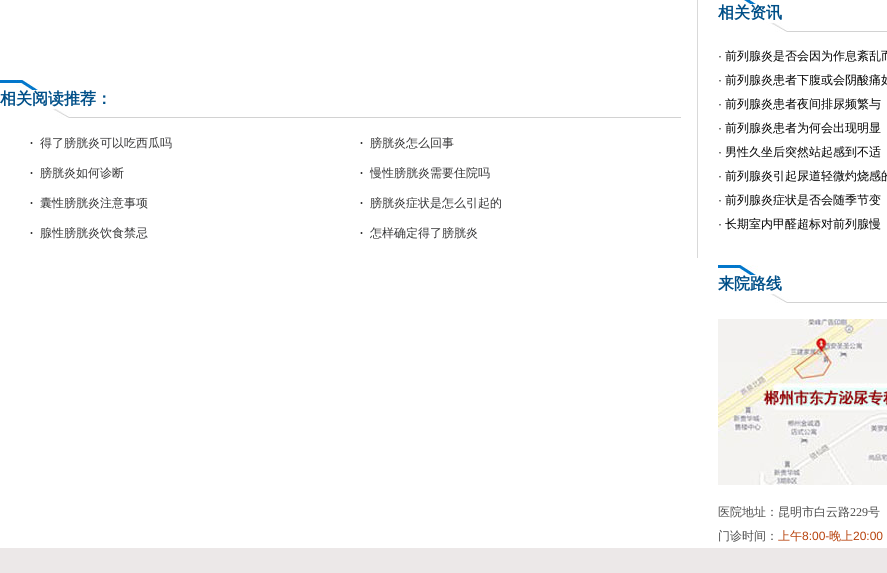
#include <cairo.h>
#include <math.h>
#include <stddef.h>


static void rgb(cairo_t *cr, int r, int g, int b)
{
	cairo_set_source_rgb(cr, r / 255.0, g / 255.0, b / 255.0);
}

static void face(cairo_t *cr, const char *family, double size, int italic, int bold)
{
	cairo_select_font_face(cr, family, italic ? CAIRO_FONT_SLANT_ITALIC : CAIRO_FONT_SLANT_NORMAL,
		bold ? CAIRO_FONT_WEIGHT_BOLD : CAIRO_FONT_WEIGHT_NORMAL);
	cairo_set_font_size(cr, size);
}

static void label(cairo_t *cr, double x, double y, const char *s)
{
	cairo_move_to(cr, x, y);
	cairo_show_text(cr, s);
}

static void rect(cairo_t *cr, double x, double y, double w, double h)
{
	cairo_rectangle(cr, x, y, w, h);
	cairo_fill(cr);
}

static void image(cairo_t *cr, const char *path, double x, double y, double w, double h)
{
	cairo_surface_t *image = cairo_image_surface_create_from_png(path);
	cairo_save(cr);
	cairo_set_source_surface(cr, image, x, y);
	cairo_rectangle(cr, x, y, w, h);
	cairo_fill(cr);
	cairo_restore(cr);
	cairo_surface_destroy(image);
}

static void draw(cairo_t *cr) {
	rgb(cr, 255, 255, 255);
	cairo_paint(cr);
	rgb(cr, 217, 217, 217);
	rect(cr, 697, 0, 1, 258);
	image(cr, "image0.png", 0, 80, 681, 38);
	face(cr, "WenQuanYi Zen Hei", 16, 0, 1);
	rgb(cr, 0, 79, 136);
	label(cr, 0, 104, "相关阅读推荐：");
	image(cr, "image1.png", 30, 142, 3, 2);
	face(cr, "WenQuanYi Zen Hei Medium", 12, 0, 0);
	rgb(cr, 54, 54, 55);
	label(cr, 40, 147, "得了膀胱炎可以吃西瓜吗");
	image(cr, "image1.png", 360, 142, 3, 2);
	label(cr, 370, 147, "膀胱炎怎么回事");
	image(cr, "image1.png", 30, 172, 3, 2);
	label(cr, 40, 177, "膀胱炎如何诊断");
	image(cr, "image1.png", 360, 172, 3, 2);
	label(cr, 370, 177, "慢性膀胱炎需要住院吗");
	image(cr, "image1.png", 30, 202, 3, 2);
	label(cr, 40, 207, "囊性膀胱炎注意事项");
	image(cr, "image1.png", 360, 202, 3, 2);
	label(cr, 370, 207, "膀胱炎症状是怎么引起的");
	image(cr, "image1.png", 30, 232, 3, 2);
	label(cr, 40, 237, "腺性膀胱炎饮食禁忌");
	image(cr, "image1.png", 360, 232, 3, 2);
	label(cr, 370, 237, "怎样确定得了膀胱炎");
	image(cr, "image2.png", 736, 0, 151, 32);
	face(cr, "WenQuanYi Zen Hei", 16, 0, 1);
	rgb(cr, 0, 79, 136);
	label(cr, 718, 18, "相关资讯");
	face(cr, "Liberation Sans", 12, 0, 0);
	rgb(cr, 0, 0, 0);
	label(cr, 718, 60, "·");
	face(cr, "WenQuanYi Zen Hei Medium", 12, 0, 0);
	label(cr, 725, 60, "前列腺炎是否会因为作息紊乱而");
	face(cr, "Liberation Sans", 12, 0, 0);
	label(cr, 718, 84, "·");
	face(cr, "WenQuanYi Zen Hei Medium", 12, 0, 0);
	label(cr, 725, 84, "前列腺炎患者下腹或会阴酸痛如");
	face(cr, "Liberation Sans", 12, 0, 0);
	label(cr, 718, 108, "·");
	face(cr, "WenQuanYi Zen Hei Medium", 12, 0, 0);
	label(cr, 725, 108, "前列腺炎患者夜间排尿频繁与");
	face(cr, "Liberation Sans", 12, 0, 0);
	label(cr, 718, 132, "·");
	face(cr, "WenQuanYi Zen Hei Medium", 12, 0, 0);
	label(cr, 725, 132, "前列腺炎患者为何会出现明显");
	face(cr, "Liberation Sans", 12, 0, 0);
	label(cr, 718, 156, "·");
	face(cr, "WenQuanYi Zen Hei Medium", 12, 0, 0);
	label(cr, 725, 156, "男性久坐后突然站起感到不适");
	face(cr, "Liberation Sans", 12, 0, 0);
	label(cr, 718, 180, "·");
	face(cr, "WenQuanYi Zen Hei Medium", 12, 0, 0);
	label(cr, 725, 180, "前列腺炎引起尿道轻微灼烧感的");
	face(cr, "Liberation Sans", 12, 0, 0);
	label(cr, 718, 204, "·");
	face(cr, "WenQuanYi Zen Hei Medium", 12, 0, 0);
	label(cr, 725, 204, "前列腺炎症状是否会随季节变");
	face(cr, "Liberation Sans", 12, 0, 0);
	label(cr, 718, 228, "·");
	face(cr, "WenQuanYi Zen Hei Medium", 12, 0, 0);
	label(cr, 725, 228, "长期室内甲醛超标对前列腺慢");
	image(cr, "image3.png", 718, 265, 169, 38);
	face(cr, "WenQuanYi Zen Hei", 16, 0, 1);
	rgb(cr, 0, 79, 136);
	label(cr, 718, 289, "来院路线");
	image(cr, "image4.png", 718, 319, 169, 166);
	face(cr, "WenQuanYi Zen Hei Medium", 12, 0, 0);
	rgb(cr, 77, 77, 77);
	label(cr, 718, 516, "医院地址：昆明市白云路");
	face(cr, "Liberation Serif", 12, 0, 0);
	label(cr, 850, 516, "229");
	face(cr, "WenQuanYi Zen Hei Medium", 12, 0, 0);
	label(cr, 868, 516, "号");
	label(cr, 718, 540, "门诊时间：");
	rgb(cr, 183, 65, 11);
	label(cr, 778, 540, "上午");
	face(cr, "Liberation Sans", 12, 0, 0);
	label(cr, 802, 540, "8:00-");
	face(cr, "WenQuanYi Zen Hei Medium", 12, 0, 0);
	label(cr, 829, 540, "晚上");
	face(cr, "Liberation Sans", 12, 0, 0);
	label(cr, 853, 540, "20:00");
	rgb(cr, 236, 232, 232);
	rect(cr, 0, 548, 887, 25);
}

int main(void) {
	cairo_surface_t *surface = cairo_image_surface_create(CAIRO_FORMAT_RGB24, 887, 573);
	cairo_t *cr = cairo_create(surface);
	cairo_font_options_t *options = cairo_font_options_create();
	cairo_font_options_set_hint_metrics(options, CAIRO_HINT_METRICS_OFF);
	cairo_font_options_set_hint_style(options, CAIRO_HINT_STYLE_NONE);
	cairo_set_font_options(cr, options);
	cairo_set_miter_limit(cr, 4);
	draw(cr);
	cairo_surface_write_to_png(surface, "render.png");
	cairo_font_options_destroy(options);
	cairo_destroy(cr);
	cairo_surface_destroy(surface);
	return 0;
}
